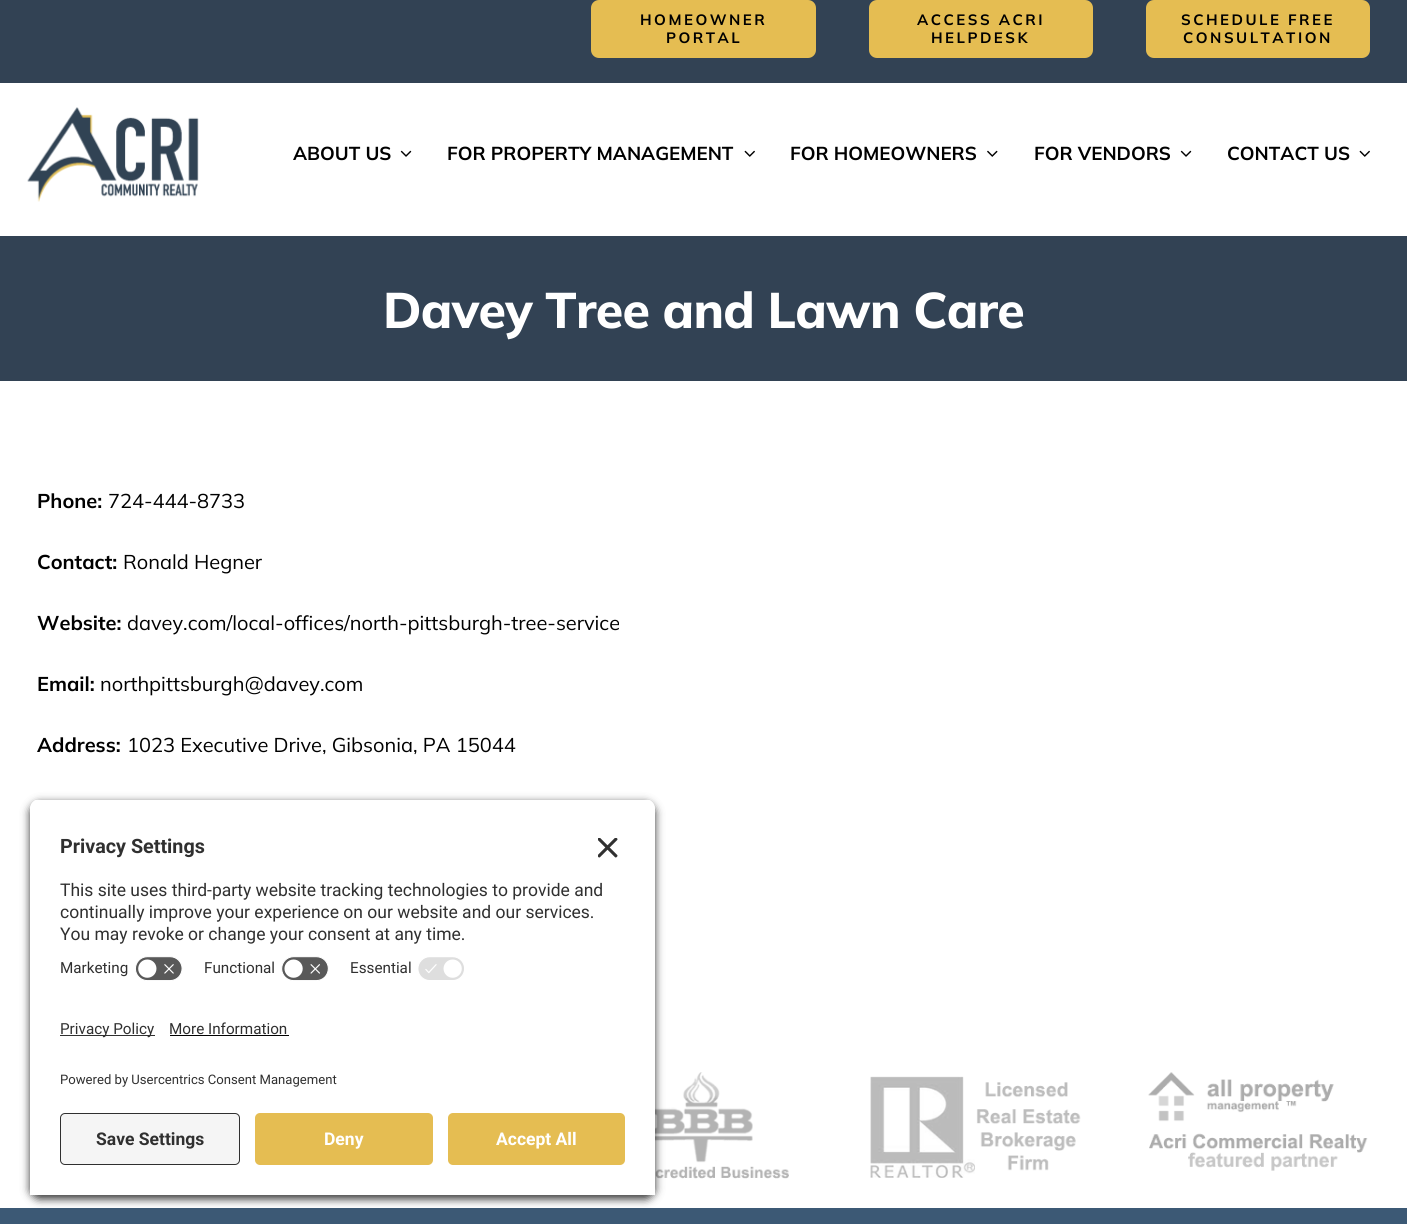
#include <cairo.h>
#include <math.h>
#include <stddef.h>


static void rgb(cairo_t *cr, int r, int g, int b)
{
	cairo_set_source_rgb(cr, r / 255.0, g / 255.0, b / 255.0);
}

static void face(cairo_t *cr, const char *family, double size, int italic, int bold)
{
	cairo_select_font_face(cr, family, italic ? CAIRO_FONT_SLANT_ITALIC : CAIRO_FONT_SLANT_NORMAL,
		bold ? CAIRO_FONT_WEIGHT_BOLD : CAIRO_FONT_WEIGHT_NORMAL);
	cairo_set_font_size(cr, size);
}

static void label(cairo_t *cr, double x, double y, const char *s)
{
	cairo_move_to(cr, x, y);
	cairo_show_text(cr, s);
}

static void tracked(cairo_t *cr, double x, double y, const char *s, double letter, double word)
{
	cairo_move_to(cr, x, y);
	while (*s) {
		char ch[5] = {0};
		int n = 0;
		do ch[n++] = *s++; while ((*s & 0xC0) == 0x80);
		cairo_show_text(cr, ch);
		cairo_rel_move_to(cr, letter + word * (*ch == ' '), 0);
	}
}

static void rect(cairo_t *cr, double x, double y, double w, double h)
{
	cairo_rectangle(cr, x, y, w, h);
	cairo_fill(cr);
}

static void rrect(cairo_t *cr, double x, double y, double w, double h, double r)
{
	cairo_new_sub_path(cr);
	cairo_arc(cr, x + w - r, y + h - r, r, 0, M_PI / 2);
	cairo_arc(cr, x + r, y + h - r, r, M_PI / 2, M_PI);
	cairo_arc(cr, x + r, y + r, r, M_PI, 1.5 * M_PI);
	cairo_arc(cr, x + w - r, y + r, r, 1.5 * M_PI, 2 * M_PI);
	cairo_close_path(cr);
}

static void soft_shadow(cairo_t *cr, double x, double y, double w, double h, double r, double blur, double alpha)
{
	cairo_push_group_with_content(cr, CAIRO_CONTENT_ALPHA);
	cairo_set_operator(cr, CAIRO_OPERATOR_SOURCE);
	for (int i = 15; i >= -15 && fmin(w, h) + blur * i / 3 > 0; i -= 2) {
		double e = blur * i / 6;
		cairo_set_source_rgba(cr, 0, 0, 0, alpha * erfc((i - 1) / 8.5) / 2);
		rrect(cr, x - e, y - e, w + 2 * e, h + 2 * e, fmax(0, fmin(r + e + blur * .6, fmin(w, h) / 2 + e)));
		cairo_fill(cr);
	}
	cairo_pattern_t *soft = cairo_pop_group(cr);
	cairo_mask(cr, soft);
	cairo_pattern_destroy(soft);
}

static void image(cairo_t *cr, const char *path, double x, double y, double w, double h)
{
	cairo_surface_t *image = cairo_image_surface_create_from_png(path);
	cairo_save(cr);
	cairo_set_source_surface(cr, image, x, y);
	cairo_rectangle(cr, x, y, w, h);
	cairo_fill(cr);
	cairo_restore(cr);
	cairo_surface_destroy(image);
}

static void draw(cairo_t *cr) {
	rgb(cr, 255, 255, 255);
	cairo_paint(cr);
	rgb(cr, 50, 66, 84);
	rect(cr, 0, 0, 1407, 83);
	rgb(cr, 229, 189, 82);
	rrect(cr, 591, 0, 225, 58, 8);
	cairo_fill(cr);
	face(cr, "Mulish", 15, 0, 1);
	rgb(cr, 0, 0, 0);
	tracked(cr, 640, 25, "HOMEOWNER", 2.5, 0);
	tracked(cr, 666, 43, "PORTAL", 2.5, 0);
	rgb(cr, 229, 189, 82);
	rrect(cr, 869, 0, 224, 58, 8);
	cairo_fill(cr);
	rgb(cr, 0, 0, 0);
	tracked(cr, 917, 25, "ACCESS ACRI", 2.5, 0);
	tracked(cr, 931, 43, "HELPDESK", 2.5, 0);
	rgb(cr, 229, 189, 82);
	rrect(cr, 1146, 0, 224, 58, 8);
	cairo_fill(cr);
	rgb(cr, 0, 0, 0);
	tracked(cr, 1181, 25, "SCHEDULE FREE", 2.5, 0);
	tracked(cr, 1183, 43, "CONSULTATION", 2.5, 0);
	image(cr, "image0.png", 27, 107, 172, 95);
	face(cr, "Mulish", 18.75, 0, 1);
	label(cr, 293, 160, "ABOUT US");
	image(cr, "image1.png", 400, 150, 12, 7);
	label(cr, 447, 160, "FOR PROPERTY MANAGEMENT");
	image(cr, "image2.png", 744, 150, 11, 7);
	label(cr, 790, 160, "FOR HOMEOWNERS");
	image(cr, "image3.png", 987, 150, 11, 7);
	label(cr, 1034, 160, "FOR VENDORS");
	image(cr, "image1.png", 1180, 150, 12, 7);
	label(cr, 1227, 160, "CONTACT US");
	image(cr, "image2.png", 1359, 150, 11, 7);
	rgb(cr, 50, 66, 84);
	rect(cr, 0, 236, 1407, 145);
	face(cr, "Mulish ExtraBold", 50, 0, 0);
	rgb(cr, 255, 255, 255);
	tracked(cr, 383, 328, "Davey Tree and Lawn Care", -0.75, 0);
	face(cr, "Mulish", 20, 0, 1);
	rgb(cr, 0, 0, 0);
	label(cr, 37, 508, "Phone:");
	face(cr, "Mulish", 20, 0, 0);
	label(cr, 108, 508, "724-444-8733");
	face(cr, "Mulish", 20, 0, 1);
	label(cr, 37, 569, "Contact:");
	face(cr, "Mulish", 20, 0, 0);
	label(cr, 123, 569, "Ronald Hegner");
	face(cr, "Mulish", 20, 0, 1);
	label(cr, 37, 630, "Website:");
	face(cr, "Mulish", 20, 0, 0);
	label(cr, 127, 630, "davey.com/local-offices/north-pittsburgh-tree-service");
	face(cr, "Mulish", 20, 0, 1);
	label(cr, 37, 691, "Email:");
	face(cr, "Mulish", 20, 0, 0);
	label(cr, 100, 691, "northpittsburgh@davey.com");
	face(cr, "Mulish", 20, 0, 1);
	label(cr, 37, 752, "Address:");
	face(cr, "Mulish", 20, 0, 0);
	label(cr, 127, 752, "1023 Executive Drive, Gibsonia, PA 15044");
	image(cr, "image4.png", 655, 1072, 134, 107);
	image(cr, "image5.png", 870, 1076, 211, 102);
	image(cr, "image6.png", 1148, 1072, 220, 99);
	rgb(cr, 60, 89, 117);
	rect(cr, 0, 1208, 1407, 16);
	rgb(cr, 0, 0, 0);
	soft_shadow(cr, 30, 803, 625, 396, 10, 4.5, 0.8);
	cairo_save(cr);
	cairo_new_path(cr);
	cairo_move_to(cr, 40, 799);
	cairo_line_to(cr, 645, 799);
	cairo_curve_to(cr, 650.5, 799, 655, 803.5, 655, 809);
	cairo_line_to(cr, 655, 1000);
	cairo_line_to(cr, 30, 1000);
	cairo_line_to(cr, 30, 809);
	cairo_curve_to(cr, 30, 803.5, 34.5, 799, 40, 799);
	cairo_close_path(cr);
	cairo_clip(cr);
	rgb(cr, 255, 255, 255);
	rect(cr, 30, 800, 625, 200);
	rect(cr, 30, 800, 625, 150);
	cairo_restore(cr);
	face(cr, "Roboto", 19.75, 0, 1);
	rgb(cr, 48, 48, 48);
	label(cr, 60, 853, "Privacy Settings");
	image(cr, "image7.png", 598, 838, 20, 20);
	face(cr, "Roboto", 17.5, 0, 0);
	label(cr, 60, 896, "This site uses third-party website tracking technologies to provide and");
	label(cr, 60, 918, "continually improve your experience on our website and our services.");
	label(cr, 60, 940, "You may revoke or change your consent at any time.");
	face(cr, "Roboto", 15.25, 0, 0);
	label(cr, 60, 973, "Marketing");
	image(cr, "image8.png", 135, 956, 48, 25);
	label(cr, 204, 973, "Functional");
	image(cr, "image9.png", 281, 956, 48, 25);
	label(cr, 350, 973, "Essential");
	image(cr, "image10.png", 418, 957, 46, 23);
	rgb(cr, 255, 255, 255);
	rect(cr, 30, 1000, 625, 195);
	rgb(cr, 48, 48, 48);
	rect(cr, 60, 1035, 95, 1);
	label(cr, 60, 1034, "Privacy Policy");
	label(cr, 169, 1034, "More Information");
	rgb(cr, 0, 0, 0);
	rect(cr, 170, 1035, 119, 1);
	face(cr, "Roboto", 13.1, 0, 0);
	rgb(cr, 48, 48, 48);
	label(cr, 60, 1084, "Powered by Usercentrics Consent Management");
	rgb(cr, 245, 245, 245);
	rrect(cr, 60.5, 1113.5, 179, 51, 4.5);
	cairo_fill_preserve(cr);
	rgb(cr, 48, 48, 48);
	cairo_set_line_width(cr, 1);
	cairo_stroke(cr);
	face(cr, "Roboto", 17.5, 0, 1);
	label(cr, 96, 1145, "Save Settings");
	rgb(cr, 229, 189, 82);
	rrect(cr, 255, 1113, 178, 52, 5);
	cairo_fill(cr);
	rgb(cr, 255, 255, 255);
	label(cr, 324, 1145, "Deny");
	rgb(cr, 229, 189, 82);
	rrect(cr, 448, 1113, 177, 52, 5);
	cairo_fill(cr);
	rgb(cr, 255, 255, 255);
	label(cr, 496, 1145, "Accept All");
}

int main(void) {
	cairo_surface_t *surface = cairo_image_surface_create(CAIRO_FORMAT_RGB24, 1407, 1224);
	cairo_t *cr = cairo_create(surface);
	cairo_font_options_t *options = cairo_font_options_create();
	cairo_font_options_set_hint_metrics(options, CAIRO_HINT_METRICS_OFF);
	cairo_font_options_set_hint_style(options, CAIRO_HINT_STYLE_NONE);
	cairo_set_font_options(cr, options);
	cairo_set_miter_limit(cr, 4);
	draw(cr);
	cairo_surface_write_to_png(surface, "render.png");
	cairo_font_options_destroy(options);
	cairo_destroy(cr);
	cairo_surface_destroy(surface);
	return 0;
}
